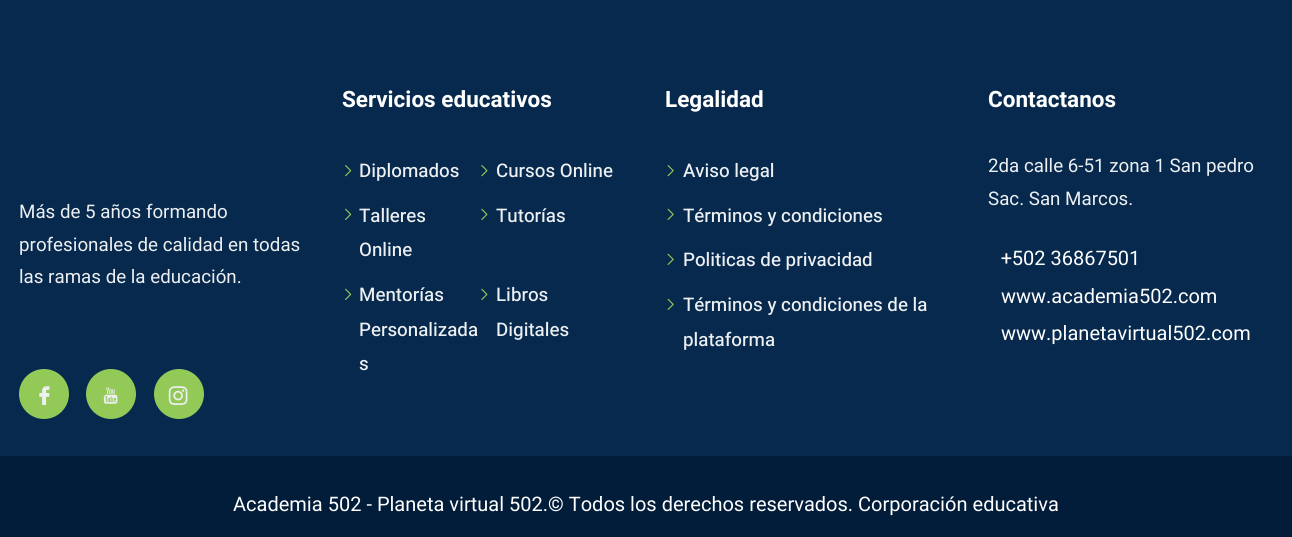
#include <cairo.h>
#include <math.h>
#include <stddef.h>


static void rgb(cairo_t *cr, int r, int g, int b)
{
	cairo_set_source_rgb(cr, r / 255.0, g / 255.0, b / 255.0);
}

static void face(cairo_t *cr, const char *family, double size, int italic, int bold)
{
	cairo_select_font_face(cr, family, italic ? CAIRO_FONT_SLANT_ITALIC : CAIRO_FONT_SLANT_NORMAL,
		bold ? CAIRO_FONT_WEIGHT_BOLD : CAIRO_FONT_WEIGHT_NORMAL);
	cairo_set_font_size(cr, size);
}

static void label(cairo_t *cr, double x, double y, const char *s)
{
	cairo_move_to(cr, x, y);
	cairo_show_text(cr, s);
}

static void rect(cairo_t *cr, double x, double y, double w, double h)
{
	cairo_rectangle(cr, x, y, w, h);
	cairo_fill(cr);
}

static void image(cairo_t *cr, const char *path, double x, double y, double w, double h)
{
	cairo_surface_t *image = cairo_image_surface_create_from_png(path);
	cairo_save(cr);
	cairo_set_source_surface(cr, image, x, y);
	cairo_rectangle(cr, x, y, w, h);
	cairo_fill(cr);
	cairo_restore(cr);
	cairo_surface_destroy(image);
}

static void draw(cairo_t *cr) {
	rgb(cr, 7, 41, 77);
	cairo_paint(cr);
	face(cr, "Heebo", 18.75, 0, 0);
	rgb(cr, 237, 240, 242);
	label(cr, 19, 218, "Más de 5 años formando");
	label(cr, 19, 251, "profesionales de calidad en todas");
	label(cr, 19, 283, "las ramas de la educación.");
	rgb(cr, 147, 201, 87);
	cairo_new_path(cr);
	cairo_arc(cr, 44, 394, 23.5, 0, 2 * M_PI);
	cairo_fill_preserve(cr);
	cairo_set_line_width(cr, 3);
	cairo_stroke(cr);
	image(cr, "image0.png", 39, 386, 11, 19);
	cairo_arc(cr, 111, 394, 23.5, 0, 2 * M_PI);
	cairo_fill_preserve(cr);
	cairo_stroke(cr);
	image(cr, "image1.png", 103, 387, 15, 17);
	cairo_arc(cr, 179, 394, 23.5, 0, 2 * M_PI);
	cairo_fill_preserve(cr);
	cairo_stroke(cr);
	image(cr, "image2.png", 168, 386, 20, 19);
	face(cr, "Heebo", 22.5, 0, 1);
	rgb(cr, 255, 255, 255);
	label(cr, 342, 107, "Servicios educativos");
	image(cr, "image3.png", 345, 165, 7, 12);
	face(cr, "Heebo Medium", 18.75, 0, 0);
	rgb(cr, 237, 240, 242);
	label(cr, 359, 177, "Diplomados");
	image(cr, "image4.png", 481, 165, 7, 12);
	label(cr, 496, 177, "Cursos Online");
	image(cr, "image5.png", 345, 208, 7, 12);
	label(cr, 359, 222, "Talleres");
	label(cr, 359, 256, "Online");
	image(cr, "image6.png", 481, 208, 7, 12);
	label(cr, 496, 222, "Tutorías");
	image(cr, "image5.png", 345, 288, 7, 12);
	label(cr, 359, 301, "Mentorías");
	label(cr, 359, 336, "Personalizada");
	label(cr, 359, 370, "s");
	image(cr, "image6.png", 481, 288, 7, 12);
	label(cr, 496, 301, "Libros");
	label(cr, 496, 336, "Digitales");
	face(cr, "Heebo", 22.5, 0, 1);
	rgb(cr, 255, 255, 255);
	label(cr, 665, 107, "Legalidad");
	image(cr, "image7.png", 667, 165, 7, 12);
	face(cr, "Heebo Medium", 18.75, 0, 0);
	rgb(cr, 237, 240, 242);
	label(cr, 683, 177, "Aviso legal");
	image(cr, "image8.png", 667, 208, 7, 12);
	label(cr, 683, 222, "Términos y condiciones");
	image(cr, "image8.png", 667, 253, 7, 12);
	label(cr, 683, 266, "Politicas de privacidad");
	image(cr, "image8.png", 667, 298, 7, 12);
	label(cr, 683, 311, "Términos y condiciones de la");
	label(cr, 683, 346, "plataforma");
	face(cr, "Heebo", 22.5, 0, 1);
	rgb(cr, 255, 255, 255);
	label(cr, 988, 107, "Contactanos");
	face(cr, "Heebo", 18.75, 0, 0);
	rgb(cr, 237, 240, 242);
	label(cr, 988, 172, "2da calle 6-51 zona 1 San pedro");
	label(cr, 988, 205, "Sac. San Marcos.");
	face(cr, "Heebo", 20, 0, 0);
	rgb(cr, 255, 255, 255);
	label(cr, 1001, 265, "+502 36867501");
	label(cr, 1001, 303, "www.academia502.com");
	label(cr, 1001, 340, "www.planetavirtual502.com");
	rgb(cr, 2, 29, 58);
	rect(cr, 0, 456, 1292, 81);
	rgb(cr, 255, 255, 255);
	label(cr, 233, 511, "Academia 502 - Planeta virtual 502.© Todos los derechos reservados. Corporación educativa");
}

int main(void) {
	cairo_surface_t *surface = cairo_image_surface_create(CAIRO_FORMAT_RGB24, 1292, 537);
	cairo_t *cr = cairo_create(surface);
	cairo_font_options_t *options = cairo_font_options_create();
	cairo_font_options_set_hint_metrics(options, CAIRO_HINT_METRICS_OFF);
	cairo_font_options_set_hint_style(options, CAIRO_HINT_STYLE_NONE);
	cairo_set_font_options(cr, options);
	cairo_set_miter_limit(cr, 4);
	draw(cr);
	cairo_surface_write_to_png(surface, "render.png");
	cairo_font_options_destroy(options);
	cairo_destroy(cr);
	cairo_surface_destroy(surface);
	return 0;
}
